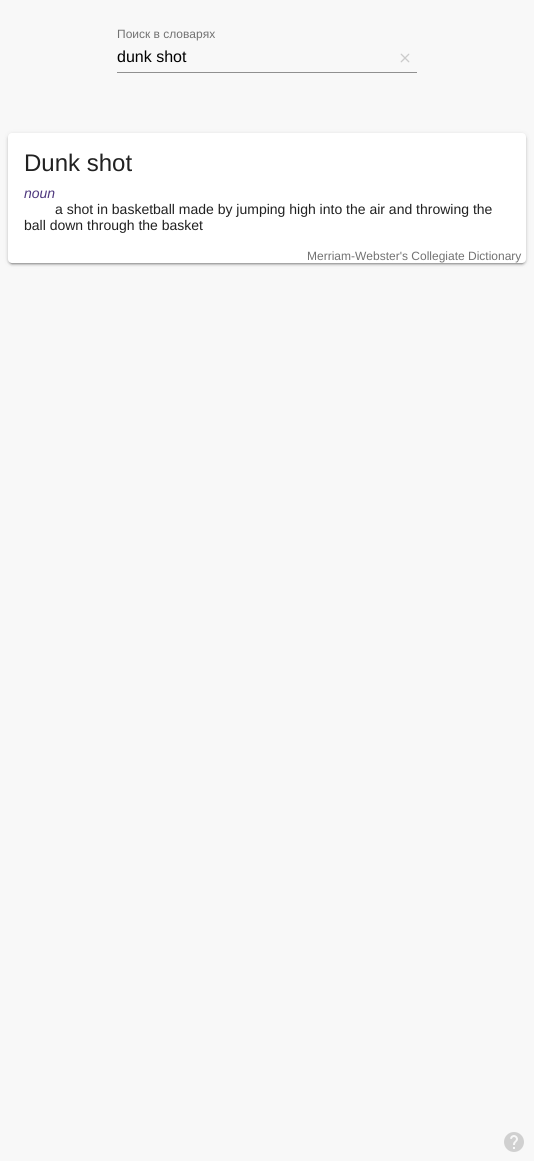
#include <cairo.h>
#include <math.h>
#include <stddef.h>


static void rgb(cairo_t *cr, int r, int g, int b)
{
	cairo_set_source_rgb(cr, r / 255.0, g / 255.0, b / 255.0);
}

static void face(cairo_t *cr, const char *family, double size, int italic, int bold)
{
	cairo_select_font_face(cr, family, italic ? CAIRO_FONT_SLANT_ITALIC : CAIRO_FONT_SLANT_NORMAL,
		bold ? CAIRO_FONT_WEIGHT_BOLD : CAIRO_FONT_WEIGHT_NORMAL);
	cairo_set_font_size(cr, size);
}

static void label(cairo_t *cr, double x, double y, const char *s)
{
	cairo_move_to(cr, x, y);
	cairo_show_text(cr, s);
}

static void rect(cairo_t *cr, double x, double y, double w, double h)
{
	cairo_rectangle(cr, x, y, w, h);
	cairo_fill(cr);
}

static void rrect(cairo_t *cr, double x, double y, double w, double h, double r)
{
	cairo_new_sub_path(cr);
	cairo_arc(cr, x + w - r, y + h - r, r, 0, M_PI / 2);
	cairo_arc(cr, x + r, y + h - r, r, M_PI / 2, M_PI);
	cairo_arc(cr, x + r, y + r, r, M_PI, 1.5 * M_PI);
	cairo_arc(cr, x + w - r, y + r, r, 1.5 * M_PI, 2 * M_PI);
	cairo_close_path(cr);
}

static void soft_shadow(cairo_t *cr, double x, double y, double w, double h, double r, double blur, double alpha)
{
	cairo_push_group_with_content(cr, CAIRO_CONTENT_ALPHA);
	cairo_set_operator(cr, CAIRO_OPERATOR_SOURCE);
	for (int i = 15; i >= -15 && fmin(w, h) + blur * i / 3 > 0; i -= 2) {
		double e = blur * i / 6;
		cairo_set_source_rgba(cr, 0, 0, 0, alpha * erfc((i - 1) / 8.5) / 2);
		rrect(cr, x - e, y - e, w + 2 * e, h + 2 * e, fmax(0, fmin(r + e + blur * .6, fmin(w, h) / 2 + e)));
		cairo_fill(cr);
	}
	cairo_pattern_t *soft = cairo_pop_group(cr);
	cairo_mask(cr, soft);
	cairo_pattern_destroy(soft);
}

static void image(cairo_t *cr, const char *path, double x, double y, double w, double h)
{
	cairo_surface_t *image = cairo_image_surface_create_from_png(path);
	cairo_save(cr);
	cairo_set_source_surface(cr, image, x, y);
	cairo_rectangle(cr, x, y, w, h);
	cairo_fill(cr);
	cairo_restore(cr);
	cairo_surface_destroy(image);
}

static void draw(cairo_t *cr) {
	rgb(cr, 248, 248, 248);
	cairo_paint(cr);
	face(cr, "Liberation Sans", 12, 0, 0);
	rgb(cr, 114, 114, 114);
	label(cr, 117, 38, "Поиск в словарях");
	face(cr, "Liberation Sans", 16, 0, 0);
	rgb(cr, 0, 0, 0);
	label(cr, 117, 62, "dunk shot");
	image(cr, "image0.png", 400, 53, 10, 10);
	rgb(cr, 144, 144, 144);
	rect(cr, 117, 72, 300, 1);
	rgb(cr, 0, 0, 0);
	soft_shadow(cr, 8, 134, 518, 130, 4, 2.5, 0.12);
	soft_shadow(cr, 8, 135, 518, 130, 4, 1, 0.14);
	soft_shadow(cr, 10, 138, 514, 126, 2, 0.5, 0.2);
	rgb(cr, 255, 255, 255);
	rrect(cr, 8, 133, 518, 130, 4);
	cairo_fill(cr);
	face(cr, "Liberation Sans", 24, 0, 0);
	rgb(cr, 33, 33, 33);
	label(cr, 24, 171, "Dunk shot");
	face(cr, "Liberation Sans", 14, 1, 0);
	rgb(cr, 78, 56, 126);
	label(cr, 24, 198, "noun");
	face(cr, "Liberation Sans", 14, 0, 0);
	rgb(cr, 33, 33, 33);
	label(cr, 55, 214, "a shot in basketball made by jumping high into the air and throwing the");
	label(cr, 24, 230, "ball down through the basket");
	face(cr, "Liberation Sans", 12, 0, 0);
	rgb(cr, 114, 114, 114);
	label(cr, 307, 260, "Merriam-Webster's Collegiate Dictionary");
	image(cr, "image1.png", 504, 1132, 20, 20);
}

int main(void) {
	cairo_surface_t *surface = cairo_image_surface_create(CAIRO_FORMAT_RGB24, 534, 1161);
	cairo_t *cr = cairo_create(surface);
	cairo_font_options_t *options = cairo_font_options_create();
	cairo_font_options_set_hint_metrics(options, CAIRO_HINT_METRICS_OFF);
	cairo_font_options_set_hint_style(options, CAIRO_HINT_STYLE_NONE);
	cairo_set_font_options(cr, options);
	cairo_set_miter_limit(cr, 4);
	draw(cr);
	cairo_surface_write_to_png(surface, "render.png");
	cairo_font_options_destroy(options);
	cairo_destroy(cr);
	cairo_surface_destroy(surface);
	return 0;
}
